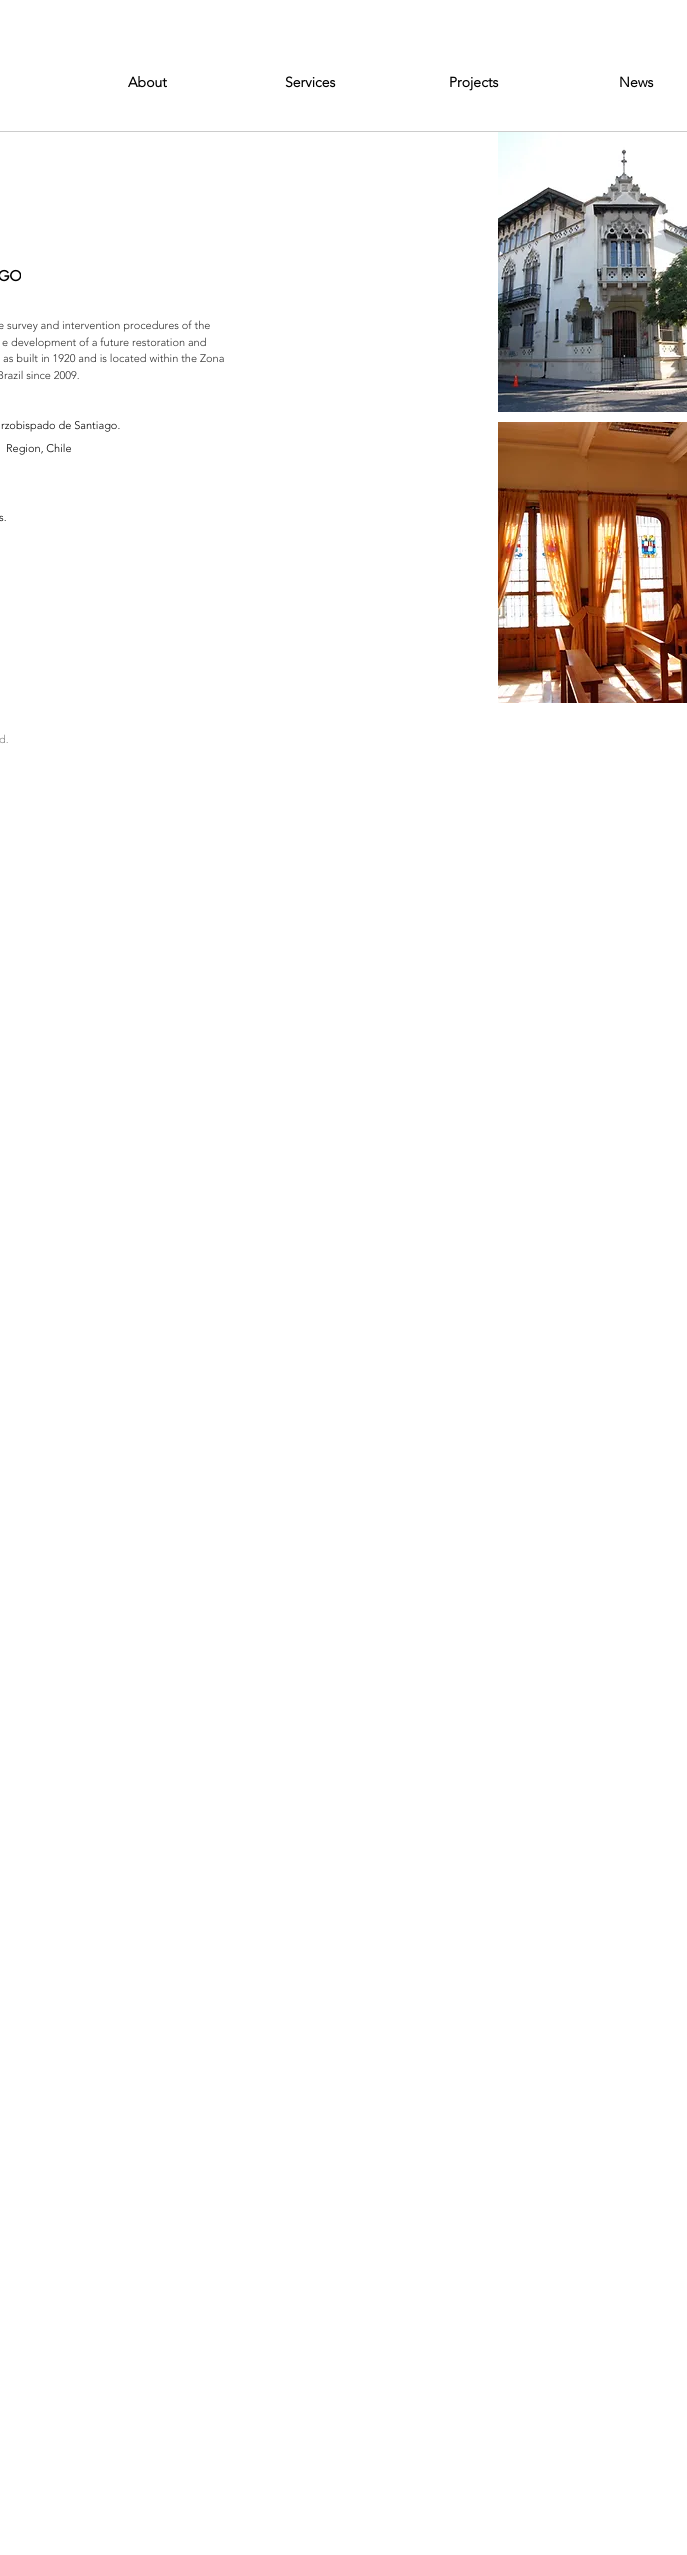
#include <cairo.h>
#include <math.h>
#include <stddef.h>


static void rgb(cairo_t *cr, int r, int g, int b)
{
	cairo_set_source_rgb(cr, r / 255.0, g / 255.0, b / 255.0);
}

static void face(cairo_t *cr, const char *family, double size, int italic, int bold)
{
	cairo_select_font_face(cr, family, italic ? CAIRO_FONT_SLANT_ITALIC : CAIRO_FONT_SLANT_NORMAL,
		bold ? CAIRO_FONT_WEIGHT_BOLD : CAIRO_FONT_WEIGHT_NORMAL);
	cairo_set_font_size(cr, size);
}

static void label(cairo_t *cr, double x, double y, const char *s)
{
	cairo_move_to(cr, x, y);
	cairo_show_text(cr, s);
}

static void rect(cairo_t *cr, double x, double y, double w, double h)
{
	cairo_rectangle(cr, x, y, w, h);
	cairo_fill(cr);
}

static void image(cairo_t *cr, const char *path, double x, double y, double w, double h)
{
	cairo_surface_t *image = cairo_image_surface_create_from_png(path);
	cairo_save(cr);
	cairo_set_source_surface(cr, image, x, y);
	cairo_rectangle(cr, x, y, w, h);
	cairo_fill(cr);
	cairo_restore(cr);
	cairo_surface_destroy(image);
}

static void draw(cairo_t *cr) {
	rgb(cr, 255, 255, 255);
	cairo_paint(cr);
	face(cr, "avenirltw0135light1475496", 14, 0, 1);
	rgb(cr, 0, 0, 0);
	label(cr, 128, 87, "About");
	label(cr, 285, 87, "Services");
	label(cr, 449, 87, "Projects");
	label(cr, 619, 87, "News");
	rgb(cr, 204, 204, 204);
	rect(cr, 0, 131, 687, 1);
	face(cr, "futura", 14, 0, 1);
	rgb(cr, 0, 0, 0);
	label(cr, -2, 281, "GO");
	face(cr, "avenirltw0135light1475496 Light", 11, 0, 0);
	rgb(cr, 42, 42, 42);
	label(cr, -2, 329, "e survey and intervention procedures of the");
	label(cr, 2, 346, "e development of a future restoration and");
	label(cr, 3, 362, "as built in 1920 and is located within the Zona");
	label(cr, -3, 379, "Brazil since 2009.");
	rgb(cr, 0, 0, 0);
	label(cr, 1, 429, "rzobispado de Santiago.");
	label(cr, 6, 452, "Region, Chile");
	label(cr, -1, 521, "s.");
	image(cr, "image0.png", 498, 132, 189, 280);
	image(cr, "image1.png", 498, 422, 189, 281);
	rgb(cr, 128, 128, 128);
	label(cr, -1, 743, "d.");
}

int main(void) {
	cairo_surface_t *surface = cairo_image_surface_create(CAIRO_FORMAT_RGB24, 687, 2555);
	cairo_t *cr = cairo_create(surface);
	cairo_font_options_t *options = cairo_font_options_create();
	cairo_font_options_set_hint_metrics(options, CAIRO_HINT_METRICS_OFF);
	cairo_font_options_set_hint_style(options, CAIRO_HINT_STYLE_NONE);
	cairo_set_font_options(cr, options);
	cairo_set_miter_limit(cr, 4);
	draw(cr);
	cairo_surface_write_to_png(surface, "render.png");
	cairo_font_options_destroy(options);
	cairo_destroy(cr);
	cairo_surface_destroy(surface);
	return 0;
}
